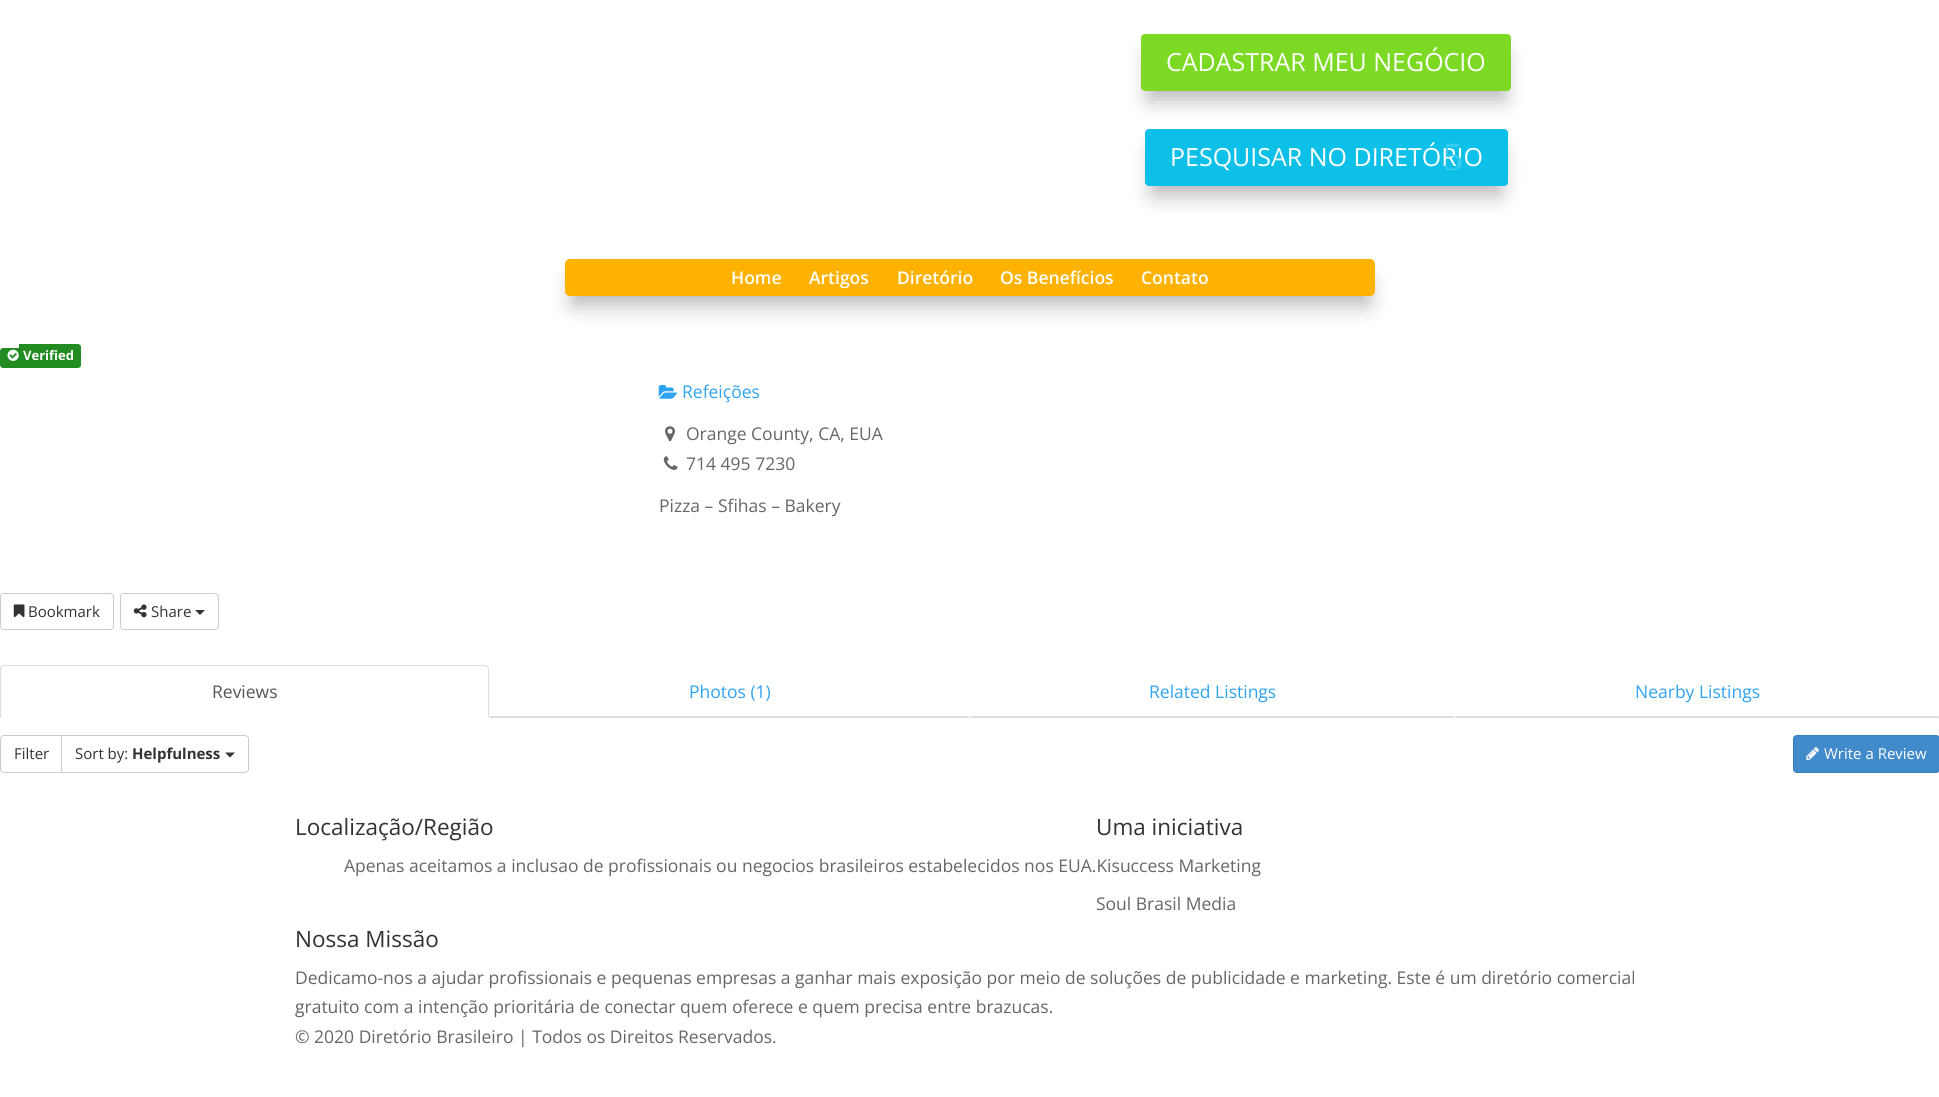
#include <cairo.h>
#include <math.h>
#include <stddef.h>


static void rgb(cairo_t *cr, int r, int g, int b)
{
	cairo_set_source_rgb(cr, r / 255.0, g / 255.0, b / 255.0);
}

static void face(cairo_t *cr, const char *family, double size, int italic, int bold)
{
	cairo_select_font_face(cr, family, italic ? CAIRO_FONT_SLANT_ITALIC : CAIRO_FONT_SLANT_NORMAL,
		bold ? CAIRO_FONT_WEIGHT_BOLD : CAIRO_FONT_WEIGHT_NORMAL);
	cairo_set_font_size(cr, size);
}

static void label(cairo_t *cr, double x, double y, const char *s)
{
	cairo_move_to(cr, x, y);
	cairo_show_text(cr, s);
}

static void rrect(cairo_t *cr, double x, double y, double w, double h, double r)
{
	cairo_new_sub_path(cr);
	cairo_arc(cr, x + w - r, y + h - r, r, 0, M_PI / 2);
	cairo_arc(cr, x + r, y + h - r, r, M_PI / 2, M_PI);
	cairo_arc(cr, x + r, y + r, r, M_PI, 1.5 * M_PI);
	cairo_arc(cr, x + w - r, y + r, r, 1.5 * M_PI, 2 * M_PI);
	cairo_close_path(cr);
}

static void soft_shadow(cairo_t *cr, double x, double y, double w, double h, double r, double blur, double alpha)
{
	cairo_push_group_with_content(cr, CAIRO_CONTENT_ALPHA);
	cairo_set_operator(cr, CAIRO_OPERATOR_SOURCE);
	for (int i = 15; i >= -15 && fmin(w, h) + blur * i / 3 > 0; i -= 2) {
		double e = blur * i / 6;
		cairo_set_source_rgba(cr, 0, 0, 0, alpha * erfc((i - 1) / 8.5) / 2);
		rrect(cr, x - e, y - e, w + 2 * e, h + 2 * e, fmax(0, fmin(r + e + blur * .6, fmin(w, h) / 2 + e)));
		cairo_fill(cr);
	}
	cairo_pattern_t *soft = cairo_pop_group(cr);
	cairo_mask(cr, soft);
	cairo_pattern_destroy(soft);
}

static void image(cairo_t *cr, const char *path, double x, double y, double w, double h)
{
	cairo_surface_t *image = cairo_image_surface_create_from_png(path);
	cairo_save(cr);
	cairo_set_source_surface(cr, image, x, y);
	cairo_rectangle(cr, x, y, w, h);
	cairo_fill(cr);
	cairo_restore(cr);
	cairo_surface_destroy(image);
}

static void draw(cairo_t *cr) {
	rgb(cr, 255, 255, 255);
	cairo_paint(cr);
	rgb(cr, 0, 0, 0);
	soft_shadow(cr, 1149, 56, 355, 43, 0, 11, 0.3);
	rgb(cr, 124, 218, 36);
	rrect(cr, 1141, 34, 370, 57, 4);
	cairo_fill(cr);
	face(cr, "Open Sans", 25, 0, 0);
	rgb(cr, 255, 255, 255);
	label(cr, 1166, 71, "CADASTRAR MEU NEGÓCIO");
	rgb(cr, 0, 0, 0);
	soft_shadow(cr, 1153, 151, 347, 43, 0, 11, 0.3);
	rgb(cr, 13, 192, 232);
	rrect(cr, 1145, 129, 363, 57, 4);
	cairo_fill(cr);
	rgb(cr, 255, 255, 255);
	label(cr, 1170, 166, "PESQUISAR NO DIRETÓRIO");
	face(cr, "Liberation Serif", 40, 0, 0);
	rgb(cr, 55, 203, 236);
	label(cr, 1443, 170, "5");
	rgb(cr, 0, 0, 0);
	soft_shadow(cr, 573, 281, 795, 23, 0, 11, 0.3);
	rgb(cr, 255, 178, 0);
	rrect(cr, 565, 259, 810, 37, 5);
	cairo_fill(cr);
	face(cr, "Open Sans SemiBold", 17.5, 0, 0);
	rgb(cr, 255, 255, 255);
	label(cr, 731, 284, "Home");
	label(cr, 809, 284, "Artigos");
	label(cr, 897, 284, "Diretório");
	label(cr, 1000, 284, "Os Benefícios");
	label(cr, 1141, 284, "Contato");
	rgb(cr, 34, 139, 34);
	cairo_new_path(cr);
	cairo_move_to(cr, 3, 348);
	cairo_line_to(cr, 19, 348);
	cairo_line_to(cr, 19, 368);
	cairo_line_to(cr, 3, 368);
	cairo_curve_to(cr, 1.5, 368, 0, 366.5, 0, 365);
	cairo_line_to(cr, 0, 351);
	cairo_curve_to(cr, 0, 349.5, 1.5, 348, 3, 348);
	cairo_close_path(cr);
	cairo_fill(cr);
	cairo_new_path(cr);
	cairo_move_to(cr, 19, 344);
	cairo_line_to(cr, 78, 344);
	cairo_curve_to(cr, 79.5, 344, 81, 345.5, 81, 347);
	cairo_line_to(cr, 81, 365);
	cairo_curve_to(cr, 81, 366.5, 79.5, 368, 78, 368);
	cairo_line_to(cr, 19, 368);
	cairo_close_path(cr);
	cairo_fill(cr);
	image(cr, "image0.png", 7, 349, 12, 12);
	face(cr, "Open Sans", 13, 0, 1);
	rgb(cr, 255, 255, 255);
	label(cr, 23, 360, "Verified");
	image(cr, "image1.png", 658, 385, 20, 14);
	face(cr, "Open Sans", 17.5, 0, 0);
	rgb(cr, 46, 163, 242);
	label(cr, 682, 398, "Refeições");
	image(cr, "image2.png", 665, 426, 10, 16);
	rgb(cr, 102, 102, 102);
	label(cr, 686, 440, "Orange County, CA, EUA");
	image(cr, "image3.png", 663, 456, 15, 14);
	label(cr, 686, 470, "714 495 7230");
	label(cr, 659, 512, "Pizza – Sfihas – Bakery");
	rrect(cr, 0.5, 593.5, 113, 36, 3.5);
	rgb(cr, 204, 204, 204);
	cairo_set_line_width(cr, 1);
	cairo_stroke(cr);
	image(cr, "image4.png", 13, 604, 12, 14);
	face(cr, "Open Sans", 15, 0, 0);
	rgb(cr, 51, 51, 51);
	label(cr, 28, 617, "Bookmark");
	rrect(cr, 120.5, 593.5, 98, 36, 3.5);
	rgb(cr, 204, 204, 204);
	cairo_stroke(cr);
	image(cr, "image5.png", 133, 604, 14, 14);
	rgb(cr, 51, 51, 51);
	label(cr, 151, 617, "Share");
	cairo_new_path(cr);
	cairo_move_to(cr, 195, 610);
	cairo_line_to(cr, 205, 610);
	cairo_line_to(cr, 200, 615);
	cairo_close_path(cr);
	cairo_fill(cr);
	rgb(cr, 221, 221, 221);
	cairo_new_path(cr);
	cairo_move_to(cr, 5, 665);
	cairo_curve_to(cr, 4, 665, 2, 666, 1, 666);
	cairo_line_to(cr, 2, 667);
	cairo_line_to(cr, 5, 666);
	cairo_line_to(cr, 484, 666);
	cairo_line_to(cr, 487, 667);
	cairo_line_to(cr, 487, 666);
	cairo_curve_to(cr, 487, 665, 485, 665, 484, 665);
	cairo_close_path(cr);
	cairo_fill(cr);
	cairo_new_path(cr);
	cairo_move_to(cr, 487, 666);
	cairo_line_to(cr, 489, 668);
	cairo_line_to(cr, 489, 718);
	cairo_line_to(cr, 487, 716);
	cairo_line_to(cr, 488, 716);
	cairo_line_to(cr, 488, 669);
	cairo_line_to(cr, 487, 667);
	cairo_close_path(cr);
	cairo_fill(cr);
	rgb(cr, 255, 255, 255);
	cairo_new_path(cr);
	cairo_move_to(cr, 489, 718);
	cairo_line_to(cr, 487, 716);
	cairo_line_to(cr, 2, 716);
	cairo_line_to(cr, 0, 718);
	cairo_close_path(cr);
	cairo_fill(cr);
	rgb(cr, 221, 221, 221);
	cairo_new_path(cr);
	cairo_move_to(cr, 0, 718);
	cairo_line_to(cr, 2, 716);
	cairo_line_to(cr, 1, 716);
	cairo_line_to(cr, 1, 670);
	cairo_curve_to(cr, 1, 669, 2, 668, 2, 667);
	cairo_line_to(cr, 1, 666);
	cairo_curve_to(cr, 0, 667, 0, 668, 0, 670);
	cairo_close_path(cr);
	cairo_fill(cr);
	face(cr, "Open Sans", 17.5, 0, 0);
	rgb(cr, 85, 85, 85);
	label(cr, 212, 698, "Reviews");
	rgb(cr, 221, 221, 221);
	cairo_new_path(cr);
	cairo_move_to(cr, 970, 718);
	cairo_line_to(cr, 489, 718);
	cairo_line_to(cr, 490, 716);
	cairo_line_to(cr, 968, 716);
	cairo_close_path(cr);
	cairo_fill(cr);
	rgb(cr, 46, 163, 242);
	label(cr, 689, 698, "Photos (1)");
	rgb(cr, 221, 221, 221);
	cairo_new_path(cr);
	cairo_move_to(cr, 1455, 718);
	cairo_line_to(cr, 970, 718);
	cairo_line_to(cr, 972, 716);
	cairo_line_to(cr, 1454, 716);
	cairo_close_path(cr);
	cairo_fill(cr);
	rgb(cr, 46, 163, 242);
	label(cr, 1149, 698, "Related Listings");
	rgb(cr, 221, 221, 221);
	cairo_new_path(cr);
	cairo_move_to(cr, 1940, 718);
	cairo_line_to(cr, 1455, 718);
	cairo_line_to(cr, 1456, 716);
	cairo_line_to(cr, 1938, 716);
	cairo_close_path(cr);
	cairo_fill(cr);
	rgb(cr, 46, 163, 242);
	label(cr, 1635, 698, "Nearby Listings");
	cairo_new_path(cr);
	cairo_move_to(cr, 4, 735.5);
	cairo_line_to(cr, 62.5, 735.5);
	cairo_line_to(cr, 62.5, 772.5);
	cairo_line_to(cr, 4, 772.5);
	cairo_curve_to(cr, 2, 772.5, 0.5, 771, 0.5, 769);
	cairo_line_to(cr, 0.5, 739);
	cairo_curve_to(cr, 0.5, 737, 2, 735.5, 4, 735.5);
	cairo_close_path(cr);
	rgb(cr, 204, 204, 204);
	cairo_stroke(cr);
	face(cr, "Open Sans", 15, 0, 0);
	rgb(cr, 51, 51, 51);
	label(cr, 14, 759, "Filter");
	rgb(cr, 255, 255, 255);
	cairo_new_path(cr);
	cairo_move_to(cr, 61.5, 735.5);
	cairo_line_to(cr, 245, 735.5);
	cairo_curve_to(cr, 247, 735.5, 248.5, 737, 248.5, 739);
	cairo_line_to(cr, 248.5, 769);
	cairo_curve_to(cr, 248.5, 771, 247, 772.5, 245, 772.5);
	cairo_line_to(cr, 61.5, 772.5);
	cairo_close_path(cr);
	cairo_fill_preserve(cr);
	rgb(cr, 204, 204, 204);
	cairo_stroke(cr);
	rgb(cr, 51, 51, 51);
	label(cr, 75, 759, "Sort by:");
	face(cr, "Open Sans", 15, 0, 1);
	label(cr, 132, 759, "Helpfulness");
	cairo_new_path(cr);
	cairo_move_to(cr, 225, 752.5);
	cairo_line_to(cr, 235, 752.5);
	cairo_line_to(cr, 230, 757.5);
	cairo_close_path(cr);
	cairo_fill(cr);
	rgb(cr, 66, 139, 202);
	rrect(cr, 1793.5, 735.5, 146, 37, 3.5);
	cairo_fill_preserve(cr);
	rgb(cr, 53, 126, 189);
	cairo_stroke(cr);
	image(cr, "image6.png", 1806, 747, 13, 13);
	face(cr, "Open Sans", 15, 0, 0);
	rgb(cr, 255, 255, 255);
	label(cr, 1824, 759, "Write a Review");
	face(cr, "Open Sans", 22.5, 0, 0);
	rgb(cr, 51, 51, 51);
	label(cr, 295, 835, "Localização/Região");
	face(cr, "Open Sans", 17.5, 0, 0);
	rgb(cr, 102, 102, 102);
	label(cr, 344, 872, "Apenas aceitamos a inclusao de profissionais ou negocios brasileiros estabelecidos nos EUA.Kisuccess Marketing");
	face(cr, "Open Sans", 22.5, 0, 0);
	rgb(cr, 51, 51, 51);
	label(cr, 1096, 835, "Uma iniciativa");
	face(cr, "Open Sans", 17.5, 0, 0);
	rgb(cr, 102, 102, 102);
	label(cr, 1096, 910, "Soul Brasil Media");
	face(cr, "Open Sans", 22.5, 0, 0);
	rgb(cr, 51, 51, 51);
	label(cr, 295, 947, "Nossa Missão");
	face(cr, "Open Sans", 17.5, 0, 0);
	rgb(cr, 102, 102, 102);
	label(cr, 295, 984, "Dedicamo-nos a ajudar profissionais e pequenas empresas a ganhar mais exposição por meio de soluções de publicidade e marketing. Este é um diretório comercial");
	label(cr, 295, 1013, "gratuito com a intenção prioritária de conectar quem oferece e quem precisa entre brazucas.");
	label(cr, 295, 1043, "© 2020 Diretório Brasileiro | Todos os Direitos Reservados.");
}

int main(void) {
	cairo_surface_t *surface = cairo_image_surface_create(CAIRO_FORMAT_RGB24, 1939, 1097);
	cairo_t *cr = cairo_create(surface);
	cairo_font_options_t *options = cairo_font_options_create();
	cairo_font_options_set_hint_metrics(options, CAIRO_HINT_METRICS_OFF);
	cairo_font_options_set_hint_style(options, CAIRO_HINT_STYLE_NONE);
	cairo_set_font_options(cr, options);
	cairo_set_miter_limit(cr, 4);
	draw(cr);
	cairo_surface_write_to_png(surface, "render.png");
	cairo_font_options_destroy(options);
	cairo_destroy(cr);
	cairo_surface_destroy(surface);
	return 0;
}
